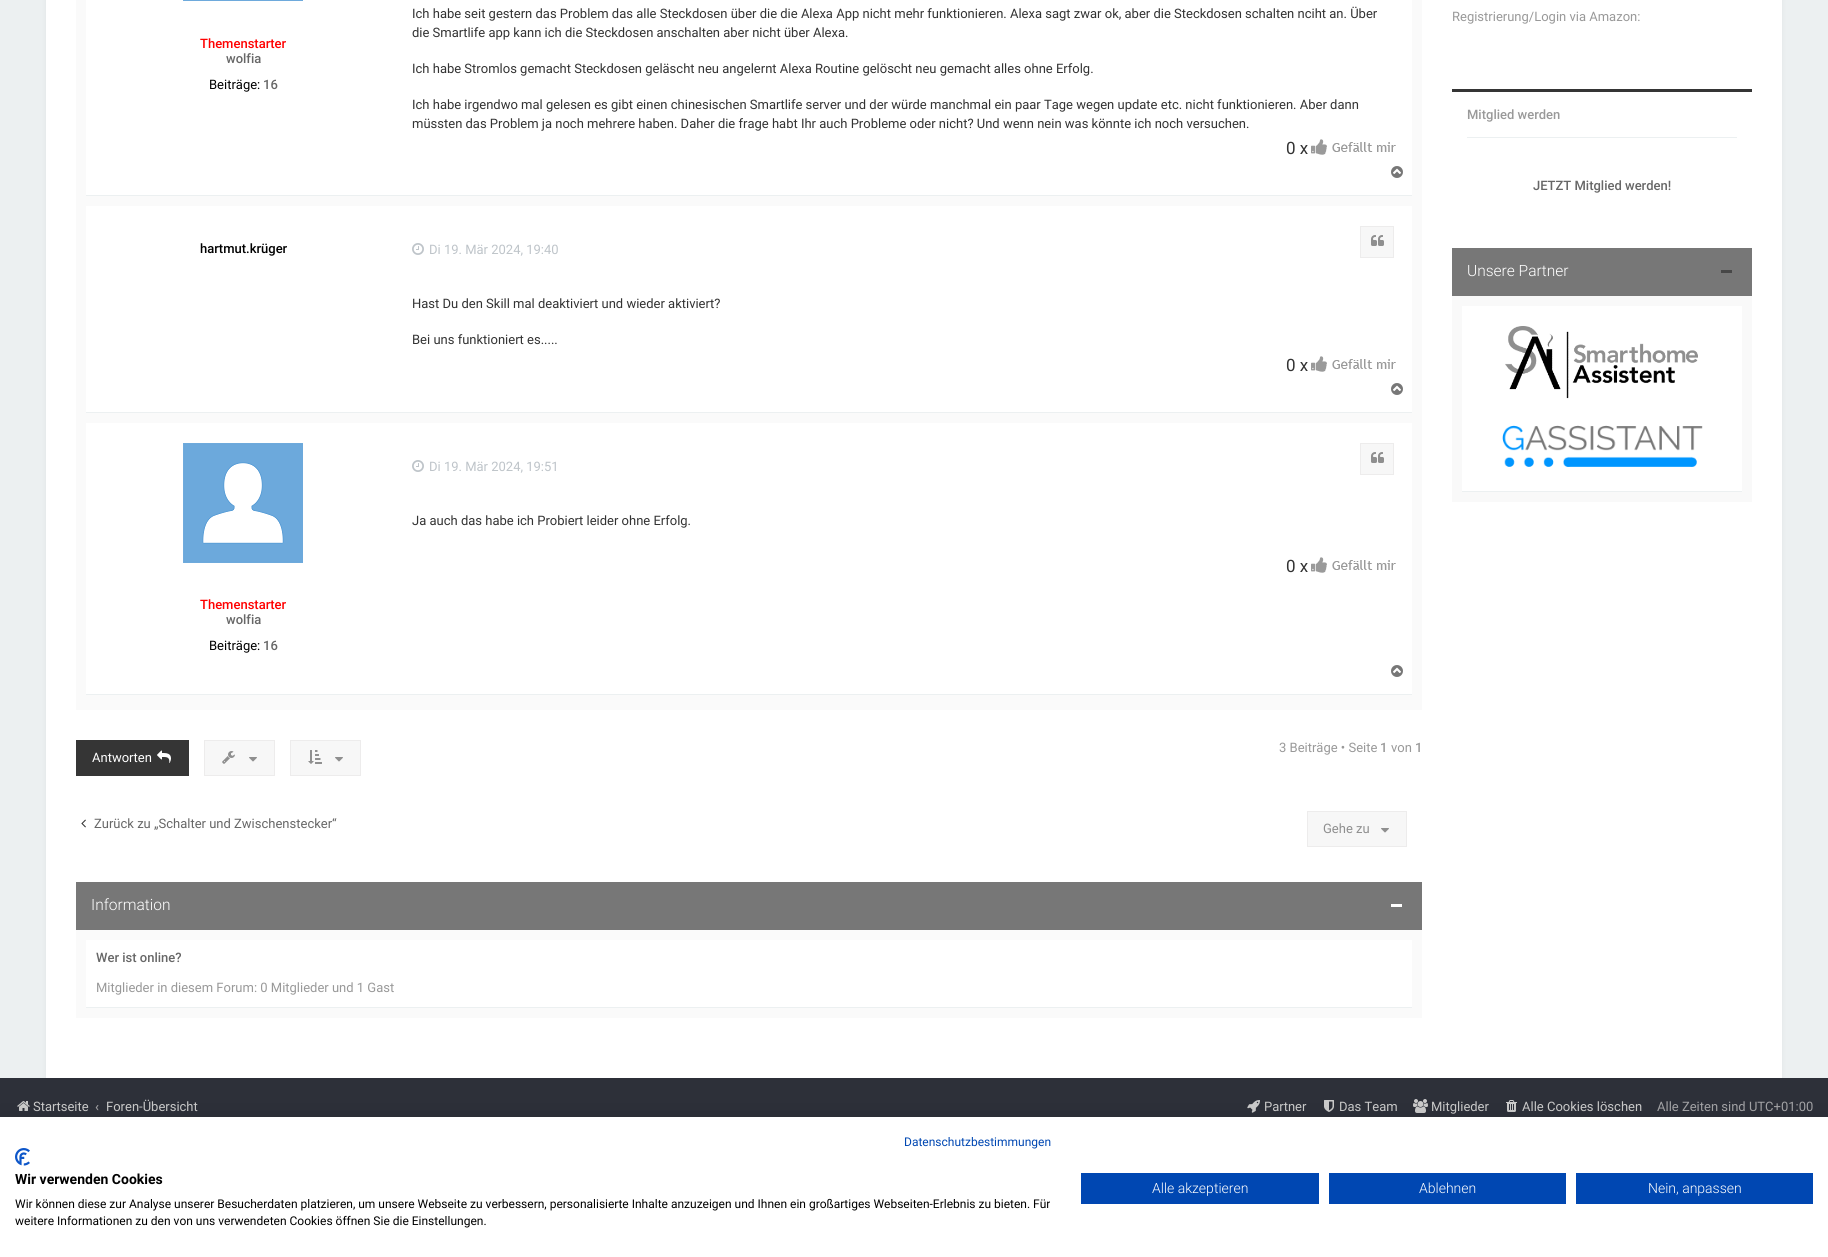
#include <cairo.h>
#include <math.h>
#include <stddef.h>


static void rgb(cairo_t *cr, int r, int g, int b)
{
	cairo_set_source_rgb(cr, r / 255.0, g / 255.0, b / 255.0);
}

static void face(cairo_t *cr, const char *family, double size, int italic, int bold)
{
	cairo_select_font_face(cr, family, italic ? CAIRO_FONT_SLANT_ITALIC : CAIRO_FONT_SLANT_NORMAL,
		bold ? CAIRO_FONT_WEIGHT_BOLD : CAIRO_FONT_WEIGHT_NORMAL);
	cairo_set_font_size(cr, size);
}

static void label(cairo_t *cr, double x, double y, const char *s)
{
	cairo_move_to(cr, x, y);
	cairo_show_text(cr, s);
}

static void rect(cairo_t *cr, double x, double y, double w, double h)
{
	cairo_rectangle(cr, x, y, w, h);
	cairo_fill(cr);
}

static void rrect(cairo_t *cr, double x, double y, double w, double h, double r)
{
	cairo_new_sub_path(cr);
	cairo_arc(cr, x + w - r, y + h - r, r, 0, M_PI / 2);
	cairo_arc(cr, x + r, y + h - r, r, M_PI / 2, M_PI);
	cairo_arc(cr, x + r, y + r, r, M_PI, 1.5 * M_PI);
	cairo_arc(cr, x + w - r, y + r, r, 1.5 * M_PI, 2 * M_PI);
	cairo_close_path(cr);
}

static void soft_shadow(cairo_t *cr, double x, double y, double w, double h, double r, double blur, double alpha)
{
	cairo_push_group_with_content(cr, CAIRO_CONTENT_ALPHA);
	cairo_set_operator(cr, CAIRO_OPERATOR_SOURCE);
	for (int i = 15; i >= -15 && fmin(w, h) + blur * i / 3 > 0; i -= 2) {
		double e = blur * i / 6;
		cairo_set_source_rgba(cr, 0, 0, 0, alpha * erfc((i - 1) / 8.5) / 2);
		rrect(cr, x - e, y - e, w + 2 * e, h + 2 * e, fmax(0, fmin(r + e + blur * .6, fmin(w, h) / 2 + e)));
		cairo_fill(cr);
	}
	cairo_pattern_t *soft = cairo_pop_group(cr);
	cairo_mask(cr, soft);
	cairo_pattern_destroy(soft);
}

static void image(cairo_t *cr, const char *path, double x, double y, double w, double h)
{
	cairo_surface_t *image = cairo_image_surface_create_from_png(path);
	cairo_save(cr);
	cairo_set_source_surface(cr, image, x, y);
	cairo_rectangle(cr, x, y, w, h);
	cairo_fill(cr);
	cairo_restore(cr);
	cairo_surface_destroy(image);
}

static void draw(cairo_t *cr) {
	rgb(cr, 236, 240, 241);
	cairo_paint(cr);
	rgb(cr, 45, 48, 57);
	rect(cr, 0, 1078, 1828, 39);
	rgb(cr, 0, 0, 0);
	soft_shadow(cr, 46, -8, 1736, 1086, 0, 2.5, 0.05);
	rgb(cr, 255, 255, 255);
	rect(cr, 46, 0, 1736, 1078);
	rgb(cr, 250, 250, 250);
	rect(cr, 76, 0, 1346, 710);
	rgb(cr, 255, 255, 255);
	rect(cr, 86, 0, 1326, 195);
	rgb(cr, 236, 240, 241);
	rect(cr, 86, 195, 1326, 1);
	image(cr, "image0.png", 183, 0, 120, 1);
	face(cr, "Roboto Medium", 13, 0, 0);
	rgb(cr, 255, 0, 0);
	label(cr, 200, 48, "Themenstarter");
	rgb(cr, 103, 103, 103);
	label(cr, 226, 63, "wolfia");
	face(cr, "Roboto", 13, 0, 0);
	rgb(cr, 0, 0, 0);
	label(cr, 209, 89, "Beiträge:");
	face(cr, "Roboto Medium", 13, 0, 0);
	rgb(cr, 103, 103, 103);
	label(cr, 263, 89, "16");
	face(cr, "Roboto", 13, 0, 0);
	rgb(cr, 51, 51, 51);
	label(cr, 412, 18, "Ich habe seit gestern das Problem das alle Steckdosen über die die Alexa App nicht mehr funktionieren. Alexa sagt zwar ok, aber die Steckdosen schalten nciht an. Über");
	label(cr, 412, 37, "die Smartlife app kann ich die Steckdosen anschalten aber nicht über Alexa.");
	label(cr, 412, 73, "Ich habe Stromlos gemacht Steckdosen geläscht neu angelernt Alexa Routine gelöscht neu gemacht alles ohne Erfolg.");
	label(cr, 412, 109, "Ich habe irgendwo mal gelesen es gibt einen chinesischen Smartlife server und der würde manchmal ein paar Tage wegen update etc. nicht funktionieren. Aber dann");
	label(cr, 412, 128, "müssten das Problem ja noch mehrere haben. Daher die frage habt Ihr auch Probleme oder nicht? Und wenn nein was könnte ich noch versuchen.");
	face(cr, "Roboto", 17, 0, 0);
	label(cr, 1286, 154, "0 x");
	image(cr, "image1.png", 1311, 139, 85, 16);
	image(cr, "image2.png", 1391, 166, 12, 12);
	rgb(cr, 255, 255, 255);
	rect(cr, 86, 206, 1326, 206);
	rgb(cr, 236, 240, 241);
	rect(cr, 86, 412, 1326, 1);
	face(cr, "Roboto Medium", 13, 0, 0);
	rgb(cr, 0, 0, 0);
	label(cr, 200, 253, "hartmut.krüger");
	image(cr, "image3.png", 412, 243, 12, 12);
	face(cr, "Roboto", 13, 0, 0);
	rgb(cr, 190, 196, 201);
	label(cr, 429, 254, "Di 19. Mär 2024, 19:40");
	rgb(cr, 247, 247, 247);
	cairo_rectangle(cr, 1360.5, 226.5, 33, 31);
	cairo_fill_preserve(cr);
	rgb(cr, 237, 236, 236);
	cairo_set_line_width(cr, 1);
	cairo_stroke(cr);
	image(cr, "image4.png", 1371, 235, 13, 11);
	rgb(cr, 51, 51, 51);
	label(cr, 412, 308, "Hast Du den Skill mal deaktiviert und wieder aktiviert?");
	label(cr, 412, 344, "Bei uns funktioniert es.....");
	face(cr, "Roboto", 17, 0, 0);
	label(cr, 1286, 371, "0 x");
	image(cr, "image1.png", 1311, 356, 85, 16);
	image(cr, "image2.png", 1391, 383, 12, 12);
	rgb(cr, 255, 255, 255);
	rect(cr, 86, 423, 1326, 271);
	rgb(cr, 236, 240, 241);
	rect(cr, 86, 694, 1326, 1);
	image(cr, "image3.png", 412, 460, 12, 12);
	face(cr, "Roboto", 13, 0, 0);
	rgb(cr, 190, 196, 201);
	label(cr, 429, 471, "Di 19. Mär 2024, 19:51");
	rgb(cr, 247, 247, 247);
	cairo_rectangle(cr, 1360.5, 443.5, 33, 31);
	cairo_fill_preserve(cr);
	rgb(cr, 237, 236, 236);
	cairo_stroke(cr);
	image(cr, "image4.png", 1371, 452, 13, 11);
	rgb(cr, 51, 51, 51);
	label(cr, 412, 525, "Ja auch das habe ich Probiert leider ohne Erfolg.");
	face(cr, "Roboto", 17, 0, 0);
	label(cr, 1286, 572, "0 x");
	image(cr, "image1.png", 1311, 557, 85, 16);
	image(cr, "image5.png", 183, 443, 120, 120);
	face(cr, "Roboto Medium", 13, 0, 0);
	rgb(cr, 255, 0, 0);
	label(cr, 200, 609, "Themenstarter");
	rgb(cr, 103, 103, 103);
	label(cr, 226, 624, "wolfia");
	face(cr, "Roboto", 13, 0, 0);
	rgb(cr, 0, 0, 0);
	label(cr, 209, 650, "Beiträge:");
	face(cr, "Roboto Medium", 13, 0, 0);
	rgb(cr, 103, 103, 103);
	label(cr, 263, 650, "16");
	image(cr, "image2.png", 1391, 665, 12, 12);
	rgb(cr, 247, 247, 247);
	cairo_rectangle(cr, 204.5, 740.5, 70, 35);
	cairo_fill_preserve(cr);
	rgb(cr, 237, 236, 236);
	cairo_stroke(cr);
	image(cr, "image6.png", 222, 751, 13, 13);
	image(cr, "image7.png", 249, 757, 8, 5);
	rgb(cr, 247, 247, 247);
	cairo_rectangle(cr, 290.5, 740.5, 70, 35);
	cairo_fill_preserve(cr);
	rgb(cr, 237, 236, 236);
	cairo_stroke(cr);
	image(cr, "image8.png", 308, 750, 14, 14);
	image(cr, "image7.png", 335, 757, 8, 5);
	face(cr, "Roboto", 13, 0, 0);
	rgb(cr, 153, 153, 153);
	label(cr, 1279, 752, "3 Beiträge • Seite");
	face(cr, "Roboto Medium", 13, 0, 0);
	label(cr, 1380, 752, "1");
	face(cr, "Roboto", 13, 0, 0);
	label(cr, 1391, 752, "von");
	face(cr, "Roboto Medium", 13, 0, 0);
	label(cr, 1415, 752, "1");
	rgb(cr, 53, 53, 53);
	rect(cr, 76, 740, 113, 36);
	face(cr, "Roboto", 13, 0, 0);
	rgb(cr, 255, 255, 255);
	label(cr, 92, 762, "Antworten");
	image(cr, "image9.png", 157, 750, 14, 13);
	image(cr, "image10.png", 81, 819, 5, 9);
	rgb(cr, 103, 103, 103);
	label(cr, 94, 828, "Zurück zu „Schalter und Zwischenstecker“");
	rgb(cr, 247, 247, 247);
	cairo_rectangle(cr, 1307.5, 811.5, 99, 35);
	cairo_fill_preserve(cr);
	rgb(cr, 237, 236, 236);
	cairo_stroke(cr);
	rgb(cr, 143, 143, 143);
	label(cr, 1323, 833, "Gehe zu");
	image(cr, "image7.png", 1381, 828, 8, 5);
	rgb(cr, 250, 250, 250);
	rect(cr, 76, 930, 1346, 88);
	rgb(cr, 119, 119, 119);
	rect(cr, 76, 882, 1346, 48);
	face(cr, "Roboto Light", 15.5, 0, 0);
	rgb(cr, 255, 255, 255);
	label(cr, 91, 910, "Information");
	rect(cr, 1391, 904, 11, 3);
	rect(cr, 86, 940, 1326, 67);
	rgb(cr, 236, 240, 241);
	rect(cr, 86, 1007, 1326, 1);
	face(cr, "Roboto Medium", 13, 0, 0);
	rgb(cr, 103, 103, 103);
	label(cr, 96, 962, "Wer ist online?");
	face(cr, "Roboto", 13, 0, 0);
	rgb(cr, 153, 153, 153);
	label(cr, 96, 992, "Mitglieder in diesem Forum: 0 Mitglieder und 1 Gast");
	label(cr, 1452, 21, "Registrierung/Login via Amazon:");
	rgb(cr, 53, 53, 53);
	rect(cr, 1452, 89, 300, 3);
	face(cr, "Roboto Medium", 13, 0, 0);
	rgb(cr, 153, 153, 153);
	label(cr, 1467, 119, "Mitglied werden");
	rgb(cr, 236, 240, 241);
	rect(cr, 1467, 137, 270, 1);
	rgb(cr, 103, 103, 103);
	label(cr, 1533, 190, "JETZT Mitglied werden!");
	rgb(cr, 249, 249, 249);
	rect(cr, 1452, 296, 300, 206);
	rgb(cr, 119, 119, 119);
	rect(cr, 1452, 248, 300, 48);
	face(cr, "Roboto Light", 15.5, 0, 0);
	rgb(cr, 255, 255, 255);
	label(cr, 1467, 276, "Unsere Partner");
	rgb(cr, 71, 71, 71);
	rect(cr, 1721, 270, 11, 3);
	rgb(cr, 255, 255, 255);
	rect(cr, 1462, 306, 280, 185);
	rgb(cr, 236, 240, 241);
	rect(cr, 1462, 491, 280, 1);
	image(cr, "image11.png", 1505, 326, 193, 73);
	image(cr, "image12.png", 1502, 425, 201, 42);
	image(cr, "image13.png", 17, 1101, 13, 10);
	face(cr, "Roboto", 13, 0, 0);
	rgb(cr, 204, 204, 204);
	label(cr, 33, 1111, "Startseite");
	face(cr, "Roboto Medium", 13, 0, 0);
	rgb(cr, 164, 164, 167);
	label(cr, 95, 1111, "‹");
	face(cr, "Roboto", 13, 0, 0);
	rgb(cr, 204, 204, 204);
	label(cr, 106, 1111, "Foren-Übersicht");
	image(cr, "image14.png", 1247, 1100, 13, 13);
	label(cr, 1264, 1111, "Partner");
	image(cr, "image15.png", 1324, 1100, 10, 12);
	label(cr, 1339, 1111, "Das Team");
	image(cr, "image16.png", 1413, 1099, 15, 14);
	label(cr, 1431, 1111, "Mitglieder");
	image(cr, "image17.png", 1506, 1100, 11, 12);
	label(cr, 1522, 1111, "Alle Cookies löschen");
	rgb(cr, 164, 164, 167);
	label(cr, 1657, 1111, "Alle Zeiten sind UTC+01:00");
	rgb(cr, 0, 0, 0);
	soft_shadow(cr, 0, 1117, 1828, 140, 0, 12, 0.1);
	rgb(cr, 255, 255, 255);
	rect(cr, 0, 1117, 1828, 140);
	face(cr, "Roboto", 12, 0, 0);
	rgb(cr, 0, 71, 178);
	label(cr, 904, 1146, "Datenschutzbestimmungen");
	image(cr, "image18.png", 15, 1148, 15, 18);
	face(cr, "Roboto", 14, 0, 1);
	rgb(cr, 0, 0, 0);
	label(cr, 15, 1184, "Wir verwenden Cookies");
	face(cr, "Roboto", 12, 0, 0);
	label(cr, 15, 1208, "Wir können diese zur Analyse unserer Besucherdaten platzieren, um unsere Webseite zu verbessern, personalisierte Inhalte anzuzeigen und Ihnen ein großartiges Webseiten-Erlebnis zu bieten. Für");
	label(cr, 15, 1225, "weitere Informationen zu den von uns verwendeten Cookies öffnen Sie die Einstellungen.");
	rgb(cr, 0, 71, 178);
	rect(cr, 1081, 1173, 238, 31);
	face(cr, "Roboto Light", 14, 0, 0);
	rgb(cr, 255, 255, 255);
	label(cr, 1152, 1193, "Alle akzeptieren");
	rgb(cr, 0, 71, 178);
	rect(cr, 1329, 1173, 237, 31);
	rgb(cr, 255, 255, 255);
	label(cr, 1419, 1193, "Ablehnen");
	rgb(cr, 0, 71, 178);
	rect(cr, 1576, 1173, 237, 31);
	rgb(cr, 255, 255, 255);
	label(cr, 1648, 1193, "Nein, anpassen");
}

int main(void) {
	cairo_surface_t *surface = cairo_image_surface_create(CAIRO_FORMAT_RGB24, 1828, 1257);
	cairo_t *cr = cairo_create(surface);
	cairo_font_options_t *options = cairo_font_options_create();
	cairo_font_options_set_hint_metrics(options, CAIRO_HINT_METRICS_OFF);
	cairo_font_options_set_hint_style(options, CAIRO_HINT_STYLE_NONE);
	cairo_set_font_options(cr, options);
	cairo_set_miter_limit(cr, 4);
	draw(cr);
	cairo_surface_write_to_png(surface, "render.png");
	cairo_font_options_destroy(options);
	cairo_destroy(cr);
	cairo_surface_destroy(surface);
	return 0;
}
